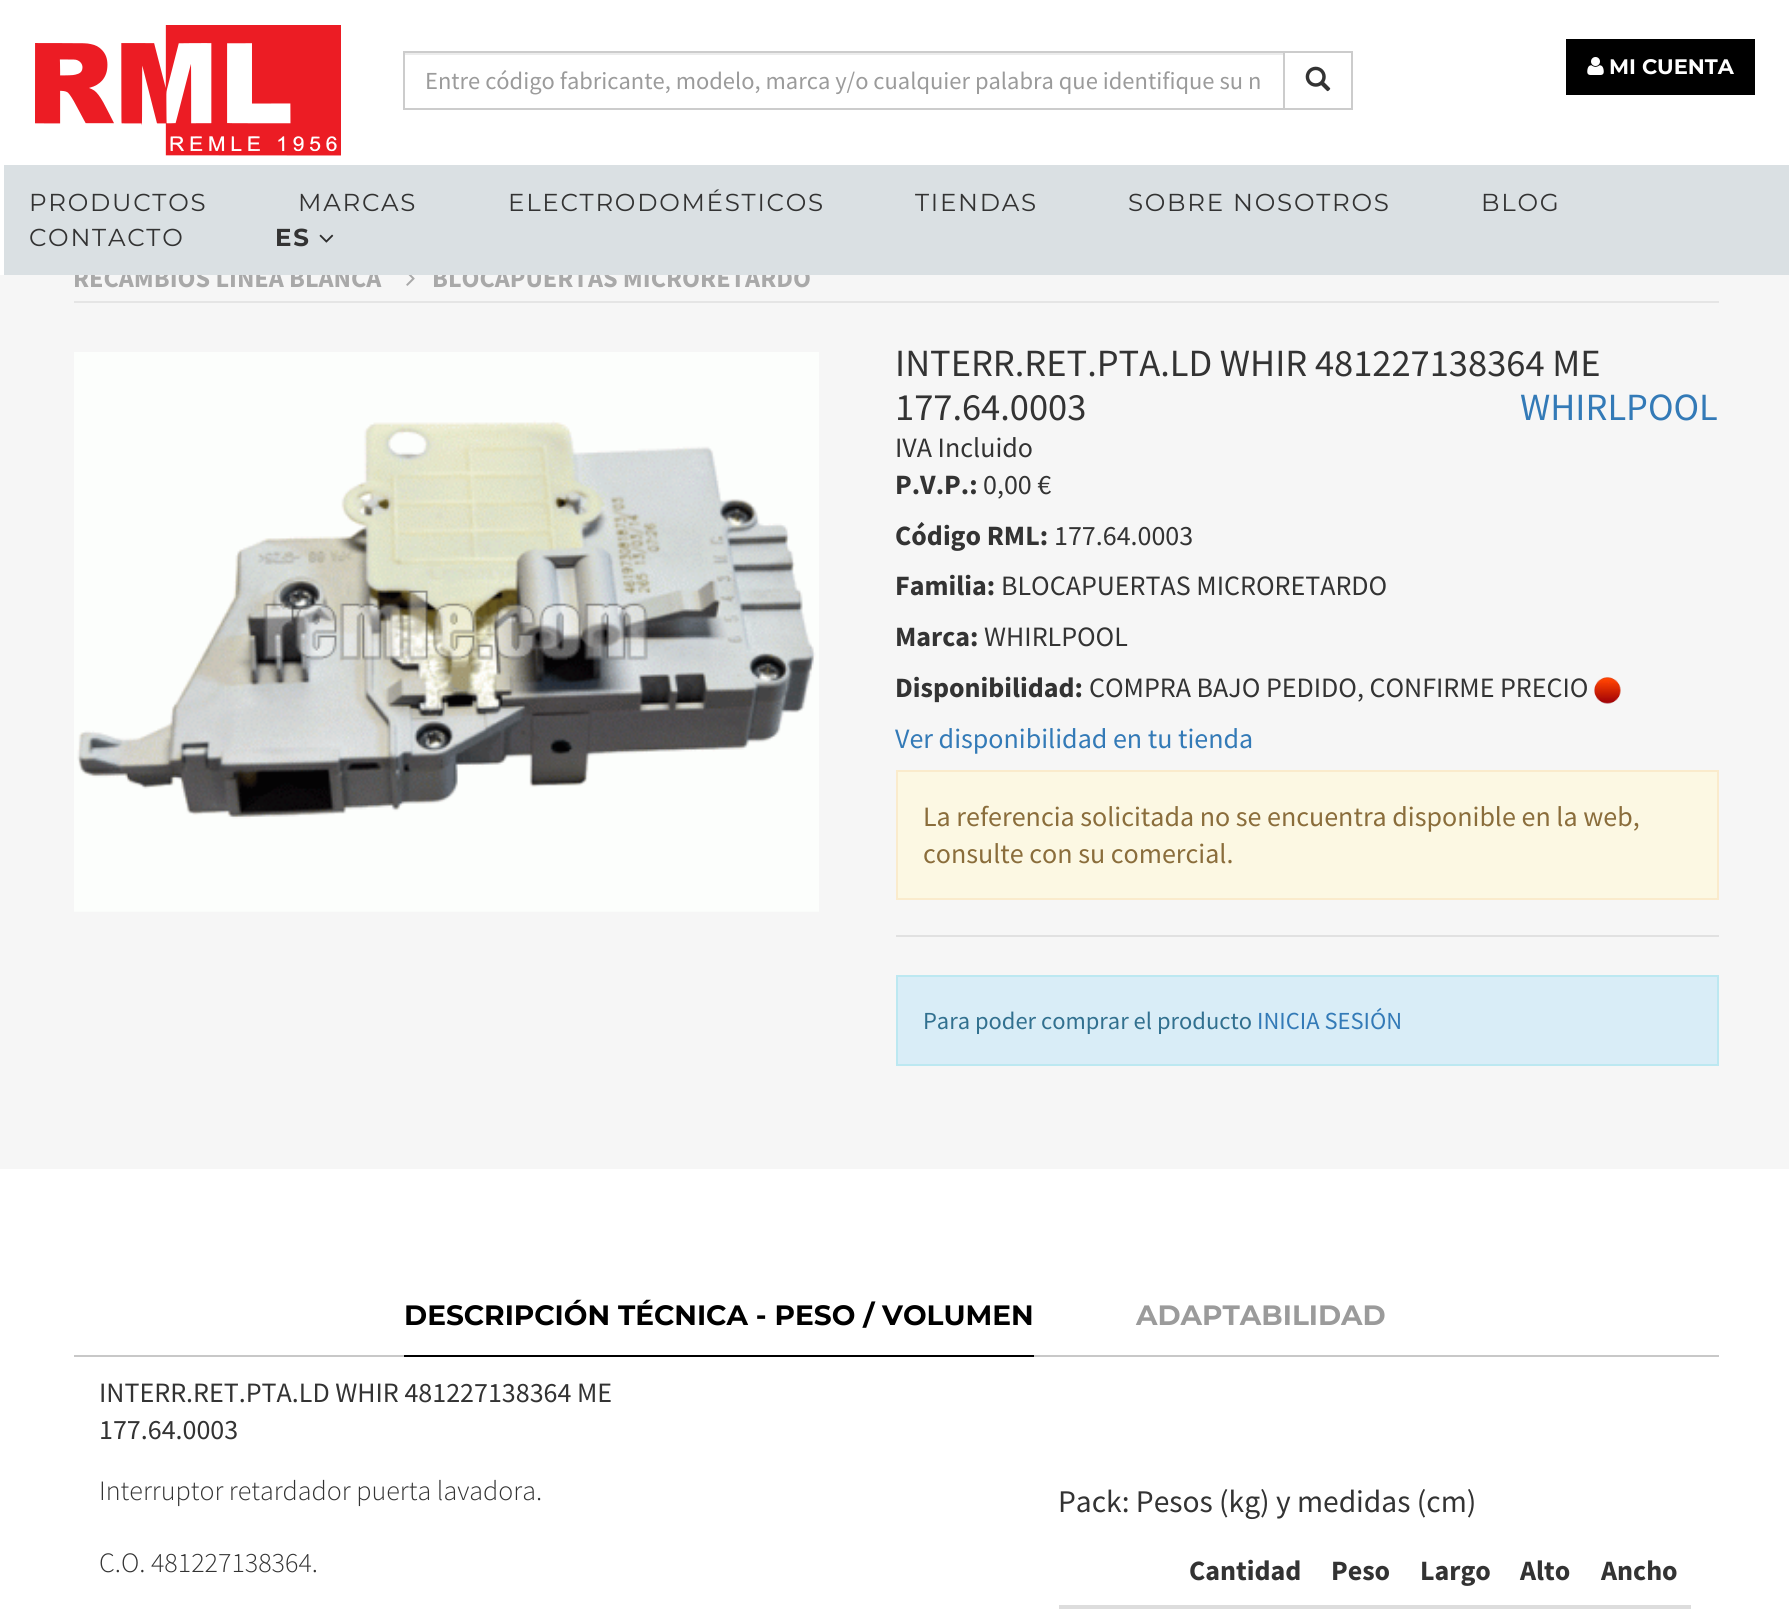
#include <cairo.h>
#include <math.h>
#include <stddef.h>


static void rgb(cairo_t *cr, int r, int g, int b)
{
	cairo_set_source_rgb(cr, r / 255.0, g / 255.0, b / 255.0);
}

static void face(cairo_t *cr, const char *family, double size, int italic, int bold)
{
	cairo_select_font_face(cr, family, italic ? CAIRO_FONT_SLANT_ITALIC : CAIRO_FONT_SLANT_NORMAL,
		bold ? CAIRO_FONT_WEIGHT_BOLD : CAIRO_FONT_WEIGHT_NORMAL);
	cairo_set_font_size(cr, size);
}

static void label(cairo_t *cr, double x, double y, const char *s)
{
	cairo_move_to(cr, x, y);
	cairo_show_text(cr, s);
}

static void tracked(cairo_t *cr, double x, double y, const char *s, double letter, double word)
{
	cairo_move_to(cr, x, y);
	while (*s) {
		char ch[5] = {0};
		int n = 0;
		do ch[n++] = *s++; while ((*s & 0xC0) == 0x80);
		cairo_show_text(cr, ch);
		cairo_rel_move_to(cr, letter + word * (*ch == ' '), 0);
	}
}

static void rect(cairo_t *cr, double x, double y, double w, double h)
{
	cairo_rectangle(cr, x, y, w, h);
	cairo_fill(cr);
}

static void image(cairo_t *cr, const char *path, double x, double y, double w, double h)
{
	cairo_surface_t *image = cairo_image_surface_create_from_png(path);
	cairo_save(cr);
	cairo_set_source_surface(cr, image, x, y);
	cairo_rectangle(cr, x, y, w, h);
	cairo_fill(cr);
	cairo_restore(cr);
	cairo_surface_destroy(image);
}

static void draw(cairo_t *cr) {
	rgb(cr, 255, 255, 255);
	cairo_paint(cr);
	rgb(cr, 246, 246, 246);
	rect(cr, 0, 275, 1789, 894);
	face(cr, "Source Sans Pro", 26.25, 0, 1);
	rgb(cr, 169, 169, 169);
	label(cr, 73, 287, "RECAMBIOS LÍNEA BLANCA");
	label(cr, 432, 287, "BLOCAPUERTAS MICRORETARDO");
	rgb(cr, 255, 255, 255);
	rect(cr, 74, 263, 736, 12);
	image(cr, "image0.png", 35, 25, 306, 131);
	rgb(cr, 0, 0, 0);
	rect(cr, 1566, 39, 189, 56);
	image(cr, "image1.png", 1587, 57, 17, 18);
	face(cr, "Montserrat", 21, 0, 1);
	rgb(cr, 255, 255, 255);
	label(cr, 1609, 74, "MI CUENTA");
	rgb(cr, 236, 236, 236);
	rect(cr, 404, 53, 879, 2);
	cairo_rectangle(cr, 404, 52, 880, 57);
	rgb(cr, 204, 204, 204);
	cairo_stroke(cr);
	face(cr, "Source Sans Pro", 24.5, 0, 0);
	rgb(cr, 155, 155, 155);
	label(cr, 425, 89, "Entre código fabricante, modelo, marca y/o cualquier palabra que identifique su n");
	cairo_rectangle(cr, 1284, 52, 68, 57);
	rgb(cr, 204, 204, 204);
	cairo_stroke(cr);
	image(cr, "image2.png", 1305, 66, 26, 26);
	rgb(cr, 218, 224, 227);
	rect(cr, 4, 165, 1785, 110);
	face(cr, "Montserrat", 24.5, 0, 0);
	rgb(cr, 51, 51, 51);
	tracked(cr, 29, 211, "PRODUCTOS", 1.75, 0);
	tracked(cr, 298, 211, "MARCAS", 1.75, 0);
	tracked(cr, 508, 211, "ELECTRODOMÉSTICOS", 1.75, 0);
	tracked(cr, 915, 211, "TIENDAS", 1.75, 0);
	tracked(cr, 1128, 211, "SOBRE NOSOTROS", 1.75, 0);
	tracked(cr, 1481, 211, "BLOG", 1.75, 0);
	tracked(cr, 29, 246, "CONTACTO", 1.75, 0);
	face(cr, "Montserrat", 24.5, 0, 1);
	tracked(cr, 275, 246, "ES", 1.75, 0);
	image(cr, "image3.png", 319, 234, 15, 9);
	rgb(cr, 229, 229, 229);
	rect(cr, 74, 301, 1645, 2);
	image(cr, "image4.png", 406, 275, 9, 11);
	image(cr, "image5.png", 74, 352, 745, 560);
	face(cr, "Source Sans Pro", 38.5, 0, 0);
	rgb(cr, 51, 51, 51);
	label(cr, 895, 376, "INTERR.RET.PTA.LD WHIR 481227138364 ME");
	label(cr, 895, 420, "177.64.0003");
	rgb(cr, 51, 122, 183);
	label(cr, 1520, 420, "WHIRLPOOL");
	rgb(cr, 225, 225, 225);
	rect(cr, 896, 935, 823, 2);
	face(cr, "Source Sans Pro", 28, 0, 0);
	rgb(cr, 51, 51, 51);
	label(cr, 895, 457, "IVA Incluido");
	face(cr, "Source Sans Pro", 28, 0, 1);
	label(cr, 895, 494, "P.V.P.:");
	face(cr, "Source Sans Pro", 28, 0, 0);
	label(cr, 983, 494, "0,00 €");
	face(cr, "Source Sans Pro", 28, 0, 1);
	label(cr, 895, 545, "Código RML:");
	face(cr, "Source Sans Pro", 28, 0, 0);
	label(cr, 1054, 545, "177.64.0003");
	face(cr, "Source Sans Pro", 28, 0, 1);
	label(cr, 895, 595, "Familia:");
	face(cr, "Source Sans Pro", 28, 0, 0);
	label(cr, 1001, 595, "BLOCAPUERTAS MICRORETARDO");
	face(cr, "Source Sans Pro", 28, 0, 1);
	label(cr, 895, 646, "Marca:");
	face(cr, "Source Sans Pro", 28, 0, 0);
	label(cr, 984, 646, "WHIRLPOOL");
	face(cr, "Source Sans Pro", 28, 0, 1);
	label(cr, 895, 697, "Disponibilidad:");
	face(cr, "Source Sans Pro", 28, 0, 0);
	label(cr, 1089, 697, "COMPRA BAJO PEDIDO, CONFIRME PRECIO");
	image(cr, "image6.png", 1594, 677, 27, 27);
	rgb(cr, 51, 122, 183);
	label(cr, 895, 748, "Ver disponibilidad en tu tienda");
	rgb(cr, 252, 248, 227);
	cairo_rectangle(cr, 897, 771, 821, 128);
	cairo_fill_preserve(cr);
	rgb(cr, 250, 235, 204);
	cairo_stroke(cr);
	rgb(cr, 138, 109, 59);
	label(cr, 923, 826, "La referencia solicitada no se encuentra disponible en la web,");
	label(cr, 923, 863, "consulte con su comercial.");
	rgb(cr, 217, 237, 247);
	cairo_rectangle(cr, 897, 976, 821, 89);
	cairo_fill_preserve(cr);
	rgb(cr, 188, 232, 241);
	cairo_stroke(cr);
	face(cr, "Source Sans Pro", 24.5, 0, 0);
	rgb(cr, 49, 112, 143);
	label(cr, 923, 1029, "Para poder comprar el producto");
	rgb(cr, 51, 122, 183);
	label(cr, 1257, 1029, "INICIA SESIÓN");
	rgb(cr, 200, 200, 200);
	rect(cr, 74, 1355, 1645, 2);
	rgb(cr, 0, 0, 0);
	rect(cr, 404, 1355, 630, 2);
	face(cr, "Montserrat", 28, 0, 1);
	label(cr, 404, 1325, "DESCRIPCIÓN TÉCNICA - PESO / VOLUMEN");
	rgb(cr, 155, 155, 155);
	label(cr, 1136, 1325, "ADAPTABILIDAD");
	face(cr, "Source Sans Pro", 28, 0, 0);
	rgb(cr, 51, 51, 51);
	label(cr, 99, 1402, "INTERR.RET.PTA.LD WHIR 481227138364 ME");
	label(cr, 99, 1439, "177.64.0003");
	face(cr, "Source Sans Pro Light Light", 28, 0, 0);
	label(cr, 99, 1500, "Interruptor retardador puerta lavadora.");
	label(cr, 99, 1572, "C.O. 481227138364.");
	face(cr, "Source Sans Pro", 31.5, 0, 0);
	label(cr, 1058, 1512, "Pack: Pesos (kg) y medidas (cm)");
	face(cr, "Source Sans Pro", 28, 0, 1);
	label(cr, 1189, 1580, "Cantidad");
	label(cr, 1331, 1580, "Peso");
	label(cr, 1420, 1580, "Largo");
	label(cr, 1520, 1580, "Alto");
	rgb(cr, 221, 221, 221);
	rect(cr, 1059, 1605, 632, 4);
	rgb(cr, 51, 51, 51);
	label(cr, 1601, 1580, "Ancho");
}

int main(void) {
	cairo_surface_t *surface = cairo_image_surface_create(CAIRO_FORMAT_RGB24, 1789, 1613);
	cairo_t *cr = cairo_create(surface);
	cairo_font_options_t *options = cairo_font_options_create();
	cairo_font_options_set_hint_metrics(options, CAIRO_HINT_METRICS_OFF);
	cairo_font_options_set_hint_style(options, CAIRO_HINT_STYLE_NONE);
	cairo_set_font_options(cr, options);
	cairo_set_miter_limit(cr, 4);
	draw(cr);
	cairo_surface_write_to_png(surface, "render.png");
	cairo_font_options_destroy(options);
	cairo_destroy(cr);
	cairo_surface_destroy(surface);
	return 0;
}
